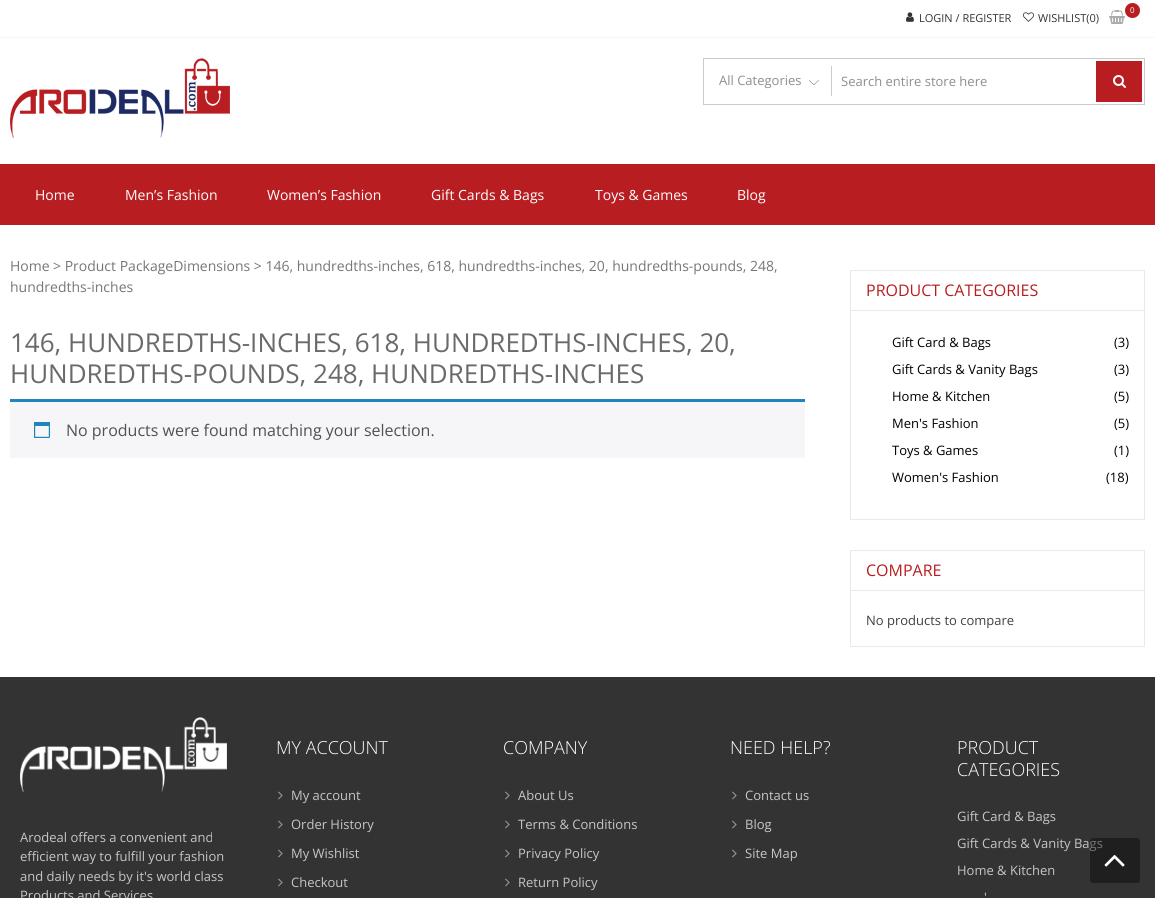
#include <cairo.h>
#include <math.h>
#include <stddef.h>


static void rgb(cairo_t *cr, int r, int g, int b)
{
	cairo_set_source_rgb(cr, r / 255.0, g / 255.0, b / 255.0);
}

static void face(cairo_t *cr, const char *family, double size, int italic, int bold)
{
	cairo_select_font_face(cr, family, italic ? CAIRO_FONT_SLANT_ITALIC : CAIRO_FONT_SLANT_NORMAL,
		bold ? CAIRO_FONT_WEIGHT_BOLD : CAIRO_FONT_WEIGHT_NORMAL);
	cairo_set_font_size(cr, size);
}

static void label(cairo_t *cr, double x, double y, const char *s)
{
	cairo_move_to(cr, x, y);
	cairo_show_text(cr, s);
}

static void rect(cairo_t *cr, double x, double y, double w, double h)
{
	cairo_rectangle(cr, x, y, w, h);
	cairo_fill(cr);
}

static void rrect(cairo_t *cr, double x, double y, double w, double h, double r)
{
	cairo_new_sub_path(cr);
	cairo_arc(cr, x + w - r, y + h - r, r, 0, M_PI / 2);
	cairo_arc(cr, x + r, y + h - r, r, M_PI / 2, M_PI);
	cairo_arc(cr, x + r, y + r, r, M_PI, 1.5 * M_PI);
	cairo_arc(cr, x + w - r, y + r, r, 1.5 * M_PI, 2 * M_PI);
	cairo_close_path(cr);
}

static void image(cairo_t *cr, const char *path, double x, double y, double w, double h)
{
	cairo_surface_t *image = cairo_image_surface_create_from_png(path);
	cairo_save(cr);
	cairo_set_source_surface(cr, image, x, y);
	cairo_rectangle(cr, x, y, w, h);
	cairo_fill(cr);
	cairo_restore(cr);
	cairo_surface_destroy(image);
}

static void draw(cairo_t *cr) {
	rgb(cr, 255, 255, 255);
	cairo_paint(cr);
	rgb(cr, 247, 247, 247);
	rect(cr, 0, 37, 1155, 1);
	image(cr, "image0.png", 1109, 10, 16, 14);
	rgb(cr, 184, 29, 33);
	cairo_arc(cr, 1132.5, 10.5, 7.5, 0, 2 * M_PI);
	cairo_fill(cr);
	face(cr, "Open Sans", 8, 0, 0);
	rgb(cr, 255, 255, 255);
	label(cr, 1130, 13, "0");
	image(cr, "image1.png", 906, 12, 8, 10);
	face(cr, "Open Sans", 11, 0, 0);
	rgb(cr, 51, 51, 51);
	label(cr, 919, 22, "LOGIN / REGISTER");
	image(cr, "image2.png", 1023, 12, 11, 10);
	label(cr, 1038, 22, "WISHLIST(0)");
	image(cr, "image3.png", 10, 58, 220, 80);
	cairo_rectangle(cr, 703.5, 58.5, 441, 46);
	rgb(cr, 203, 203, 203);
	cairo_set_line_width(cr, 1);
	cairo_stroke(cr);
	image(cr, "image4.png", 809, 80, 10, 5);
	face(cr, "Open Sans", 13, 0, 0);
	rgb(cr, 142, 142, 142);
	label(cr, 719, 85, "All Categories");
	rgb(cr, 203, 203, 203);
	rect(cr, 831, 66, 1, 30);
	rgb(cr, 142, 142, 142);
	label(cr, 841, 86, "Search entire store here");
	rgb(cr, 184, 29, 33);
	rect(cr, 1096, 61, 46, 41);
	image(cr, "image5.png", 1113, 75, 13, 13);
	rect(cr, 0, 164, 1155, 61);
	face(cr, "Open Sans", 14, 0, 0);
	rgb(cr, 255, 255, 255);
	label(cr, 35, 200, "Home");
	label(cr, 125, 200, "Men’s Fashion");
	label(cr, 267, 200, "Women’s Fashion");
	label(cr, 431, 200, "Gift Cards & Bags");
	label(cr, 595, 200, "Toys & Games");
	label(cr, 737, 200, "Blog");
	rgb(cr, 118, 118, 118);
	label(cr, 10, 271, "Home");
	label(cr, 53, 271, "> Product PackageDimensions > 146, hundredths-inches, 618, hundredths-inches, 20, hundredths-pounds, 248,");
	label(cr, 10, 292, "hundredths-inches");
	face(cr, "Open Sans", 26, 0, 0);
	rgb(cr, 106, 106, 106);
	label(cr, 10, 352, "146, HUNDREDTHS-INCHES, 618, HUNDREDTHS-INCHES, 20,");
	label(cr, 10, 383, "HUNDREDTHS-POUNDS, 248, HUNDREDTHS-INCHES");
	rgb(cr, 246, 245, 248);
	rect(cr, 10, 402, 795, 56);
	rgb(cr, 30, 133, 190);
	rect(cr, 10, 399, 795, 3);
	image(cr, "image6.png", 34, 422, 16, 16);
	face(cr, "Open Sans", 16, 0, 0);
	rgb(cr, 81, 81, 81);
	label(cr, 66, 436, "No products were found matching your selection.");
	cairo_rectangle(cr, 850.5, 270.5, 294, 249);
	rgb(cr, 234, 234, 234);
	cairo_stroke(cr);
	rect(cr, 851, 310, 293, 1);
	rgb(cr, 184, 29, 33);
	label(cr, 866, 296, "PRODUCT CATEGORIES");
	face(cr, "Open Sans", 13, 0, 0);
	rgb(cr, 0, 0, 0);
	label(cr, 892, 347, "Gift Card & Bags");
	label(cr, 1114, 347, "(3)");
	label(cr, 892, 374, "Gift Cards & Vanity Bags");
	label(cr, 1114, 374, "(3)");
	label(cr, 892, 401, "Home & Kitchen");
	label(cr, 1114, 401, "(5)");
	label(cr, 892, 428, "Men's Fashion");
	label(cr, 1114, 428, "(5)");
	label(cr, 892, 455, "Toys & Games");
	label(cr, 1114, 455, "(1)");
	label(cr, 892, 482, "Women's Fashion");
	label(cr, 1106, 482, "(18)");
	cairo_rectangle(cr, 850.5, 550.5, 294, 96);
	rgb(cr, 234, 234, 234);
	cairo_stroke(cr);
	rect(cr, 851, 590, 293, 1);
	face(cr, "Open Sans", 16, 0, 0);
	rgb(cr, 184, 29, 33);
	label(cr, 866, 576, "COMPARE");
	face(cr, "Open Sans", 13, 0, 0);
	rgb(cr, 64, 64, 64);
	label(cr, 866, 625, "No products to compare");
	rgb(cr, 51, 51, 51);
	rect(cr, 0, 677, 1155, 221);
	image(cr, "image7.png", 20, 717, 207, 75);
	rgb(cr, 198, 198, 198);
	label(cr, 20, 842, "Arodeal offers a convenient and");
	label(cr, 20, 861, "efficient way to fulfill your fashion");
	label(cr, 20, 881, "and daily needs by it's world class");
	label(cr, 20, 900, "Products and Services");
	face(cr, "Open Sans Light", 18, 0, 0);
	rgb(cr, 255, 255, 255);
	label(cr, 276, 754, "MY ACCOUNT");
	image(cr, "image8.png", 278, 791, 5, 9);
	face(cr, "Open Sans", 13, 0, 0);
	rgb(cr, 198, 198, 198);
	label(cr, 291, 800, "My account");
	image(cr, "image8.png", 278, 820, 5, 9);
	label(cr, 291, 829, "Order History");
	image(cr, "image8.png", 278, 849, 5, 9);
	label(cr, 291, 858, "My Wishlist");
	image(cr, "image8.png", 278, 878, 5, 9);
	label(cr, 291, 887, "Checkout");
	face(cr, "Open Sans Light", 18, 0, 0);
	rgb(cr, 255, 255, 255);
	label(cr, 503, 754, "COMPANY");
	image(cr, "image8.png", 505, 791, 5, 9);
	face(cr, "Open Sans", 13, 0, 0);
	rgb(cr, 198, 198, 198);
	label(cr, 518, 800, "About Us");
	image(cr, "image8.png", 505, 820, 5, 9);
	label(cr, 518, 829, "Terms & Conditions");
	image(cr, "image8.png", 505, 849, 5, 9);
	label(cr, 518, 858, "Privacy Policy");
	image(cr, "image8.png", 505, 878, 5, 9);
	label(cr, 518, 887, "Return Policy");
	face(cr, "Open Sans Light", 18, 0, 0);
	rgb(cr, 255, 255, 255);
	label(cr, 730, 754, "NEED HELP?");
	image(cr, "image8.png", 732, 791, 5, 9);
	face(cr, "Open Sans", 13, 0, 0);
	rgb(cr, 198, 198, 198);
	label(cr, 745, 800, "Contact us");
	image(cr, "image8.png", 732, 820, 5, 9);
	label(cr, 745, 829, "Blog");
	image(cr, "image8.png", 732, 849, 5, 9);
	label(cr, 745, 858, "Site Map");
	face(cr, "Open Sans Light", 18, 0, 0);
	rgb(cr, 255, 255, 255);
	label(cr, 957, 754, "PRODUCT");
	label(cr, 957, 776, "CATEGORIES");
	face(cr, "Open Sans", 13, 0, 0);
	rgb(cr, 198, 198, 198);
	label(cr, 957, 821, "Gift Card & Bags");
	label(cr, 957, 848, "Gift Cards & Vanity Bags");
	label(cr, 957, 875, "Home & Kitchen");
	label(cr, 984, 902, "'");
	cairo_set_source_rgba(cr, 0, 0, 0, 0.4);
	rrect(cr, 1090, 838, 50, 45, 3);
	cairo_fill(cr);
	image(cr, "image9.png", 1104, 855, 21, 12);
}

int main(void) {
	cairo_surface_t *surface = cairo_image_surface_create(CAIRO_FORMAT_RGB24, 1155, 898);
	cairo_t *cr = cairo_create(surface);
	cairo_font_options_t *options = cairo_font_options_create();
	cairo_font_options_set_hint_metrics(options, CAIRO_HINT_METRICS_OFF);
	cairo_font_options_set_hint_style(options, CAIRO_HINT_STYLE_NONE);
	cairo_set_font_options(cr, options);
	cairo_set_miter_limit(cr, 4);
	draw(cr);
	cairo_surface_write_to_png(surface, "render.png");
	cairo_font_options_destroy(options);
	cairo_destroy(cr);
	cairo_surface_destroy(surface);
	return 0;
}
